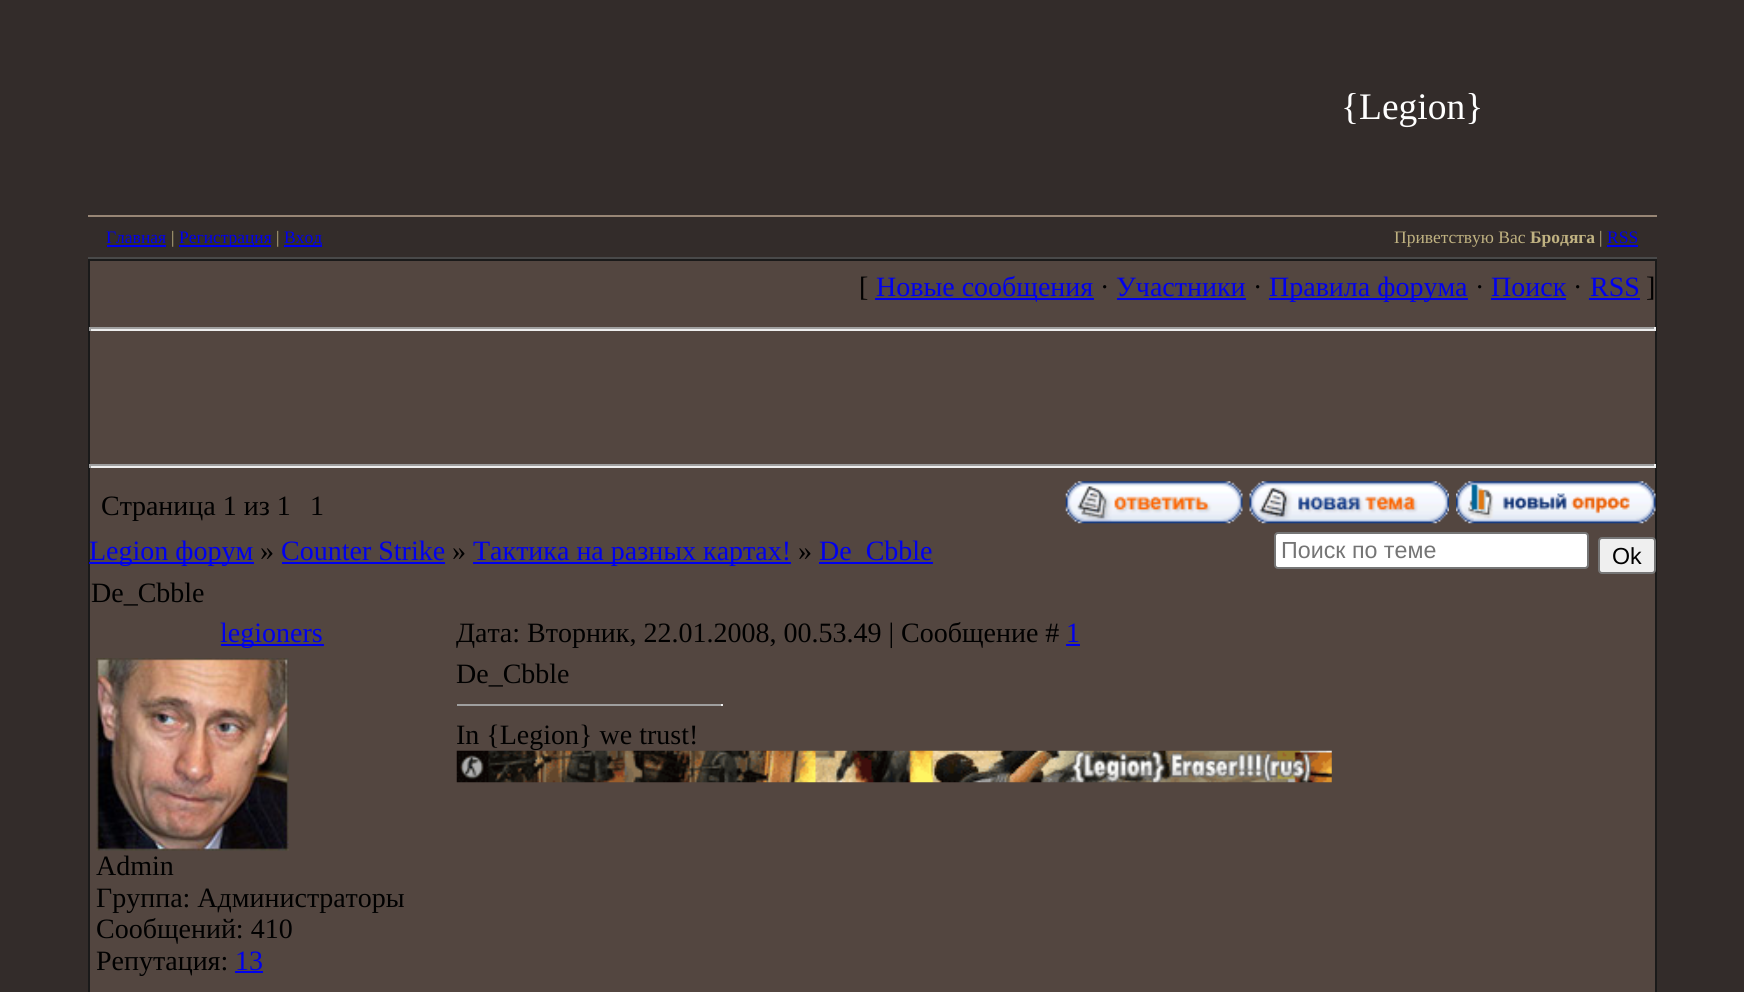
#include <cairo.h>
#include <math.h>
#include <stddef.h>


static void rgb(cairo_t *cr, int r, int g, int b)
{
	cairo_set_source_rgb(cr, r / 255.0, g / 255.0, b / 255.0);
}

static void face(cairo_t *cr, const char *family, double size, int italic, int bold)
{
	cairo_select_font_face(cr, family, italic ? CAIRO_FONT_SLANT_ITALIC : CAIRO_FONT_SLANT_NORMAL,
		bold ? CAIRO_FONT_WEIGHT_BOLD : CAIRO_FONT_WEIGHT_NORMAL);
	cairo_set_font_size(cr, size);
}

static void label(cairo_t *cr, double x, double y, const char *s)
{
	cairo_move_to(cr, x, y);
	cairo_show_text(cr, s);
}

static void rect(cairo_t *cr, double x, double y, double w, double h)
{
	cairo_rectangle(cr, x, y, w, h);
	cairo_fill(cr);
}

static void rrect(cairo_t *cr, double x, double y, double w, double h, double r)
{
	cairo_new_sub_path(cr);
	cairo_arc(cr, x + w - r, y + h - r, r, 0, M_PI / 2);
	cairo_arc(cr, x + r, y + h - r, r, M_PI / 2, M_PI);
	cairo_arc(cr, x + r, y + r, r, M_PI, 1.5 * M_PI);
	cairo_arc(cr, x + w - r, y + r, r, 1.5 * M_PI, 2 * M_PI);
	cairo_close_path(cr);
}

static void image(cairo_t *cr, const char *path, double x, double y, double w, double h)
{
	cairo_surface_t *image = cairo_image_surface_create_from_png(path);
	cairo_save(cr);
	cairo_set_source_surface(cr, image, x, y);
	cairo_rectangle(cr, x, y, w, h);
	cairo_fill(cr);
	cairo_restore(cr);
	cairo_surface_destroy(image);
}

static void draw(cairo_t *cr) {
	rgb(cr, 51, 44, 42);
	cairo_paint(cr);
	rgb(cr, 152, 134, 117);
	rect(cr, 88, 215, 1569, 2);
	face(cr, "Liberation Serif", 37.5, 0, 0);
	rgb(cr, 255, 255, 255);
	label(cr, 1341, 119, "{Legion}");
	face(cr, "Liberation Serif", 17.5, 0, 0);
	rgb(cr, 0, 0, 238);
	label(cr, 106, 243, "Главная");
	rect(cr, 107, 245, 59, 2);
	rgb(cr, 192, 178, 129);
	label(cr, 171, 243, "|");
	rgb(cr, 0, 0, 238);
	rect(cr, 179, 245, 92, 2);
	label(cr, 179, 243, "Регистрация");
	rgb(cr, 192, 178, 129);
	label(cr, 276, 243, "|");
	rgb(cr, 0, 0, 238);
	rect(cr, 284, 245, 38, 2);
	label(cr, 284, 243, "Вход");
	rgb(cr, 192, 178, 129);
	label(cr, 1394, 243, "Приветствую Вас");
	face(cr, "Liberation Serif", 17.5, 0, 1);
	label(cr, 1530, 243, "Бродяга");
	face(cr, "Liberation Serif", 17.5, 0, 0);
	label(cr, 1599, 243, "|");
	rgb(cr, 0, 0, 238);
	label(cr, 1607, 243, "RSS");
	rect(cr, 1607, 245, 31, 2);
	rgb(cr, 73, 73, 73);
	rect(cr, 88, 257, 1569, 2);
	rgb(cr, 83, 70, 64);
	cairo_rectangle(cr, 89, 260, 1567, 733);
	cairo_fill_preserve(cr);
	rgb(cr, 26, 26, 26);
	cairo_stroke(cr);
	face(cr, "Liberation Serif", 28, 0, 0);
	rgb(cr, 0, 0, 0);
	label(cr, 859, 296, "[");
	rgb(cr, 0, 0, 238);
	rect(cr, 875, 298, 219, 2);
	label(cr, 876, 296, "Новые сообщения");
	rgb(cr, 0, 0, 0);
	label(cr, 1100, 296, "·");
	rgb(cr, 0, 0, 238);
	label(cr, 1116, 296, "Участники");
	rect(cr, 1117, 298, 129, 2);
	rgb(cr, 0, 0, 0);
	label(cr, 1253, 296, "·");
	rgb(cr, 0, 0, 238);
	rect(cr, 1269, 298, 199, 2);
	label(cr, 1269, 296, "Правила форума");
	rgb(cr, 0, 0, 0);
	label(cr, 1475, 296, "·");
	rgb(cr, 0, 0, 238);
	label(cr, 1491, 296, "Поиск");
	rect(cr, 1491, 298, 75, 2);
	rgb(cr, 0, 0, 0);
	label(cr, 1573, 296, "·");
	rgb(cr, 0, 0, 238);
	label(cr, 1590, 296, "RSS");
	rect(cr, 1589, 298, 51, 2);
	rgb(cr, 0, 0, 0);
	label(cr, 1646, 296, "]");
	rgb(cr, 159, 159, 159);
	rect(cr, 89, 327, 1567, 2);
	rgb(cr, 238, 238, 238);
	rect(cr, 1654, 327, 2, 4);
	rect(cr, 89, 329, 1567, 2);
	rgb(cr, 159, 159, 159);
	rect(cr, 89, 327, 2, 4);
	rect(cr, 89, 464, 1567, 2);
	rgb(cr, 238, 238, 238);
	rect(cr, 1654, 464, 2, 4);
	rect(cr, 89, 466, 1567, 2);
	rgb(cr, 159, 159, 159);
	rect(cr, 89, 464, 2, 4);
	rgb(cr, 0, 0, 0);
	label(cr, 101, 515, "Страница 1 из 1");
	label(cr, 310, 515, "1");
	image(cr, "image0.png", 1065, 481, 178, 43);
	image(cr, "image1.png", 1249, 481, 200, 43);
	image(cr, "image2.png", 1456, 481, 200, 43);
	rgb(cr, 0, 0, 238);
	rect(cr, 89, 562, 165, 2);
	label(cr, 89, 560, "Legion форум");
	rgb(cr, 0, 0, 0);
	label(cr, 260, 560, "»");
	rgb(cr, 0, 0, 238);
	label(cr, 281, 560, "Counter Strike");
	rect(cr, 282, 562, 163, 2);
	rgb(cr, 0, 0, 0);
	label(cr, 452, 560, "»");
	rgb(cr, 0, 0, 238);
	rect(cr, 473, 562, 318, 2);
	label(cr, 473, 560, "Тактика на разных картах!");
	rgb(cr, 0, 0, 0);
	label(cr, 798, 560, "»");
	rgb(cr, 0, 0, 238);
	rect(cr, 819, 562, 114, 2);
	label(cr, 819, 560, "De_Cbble");
	rgb(cr, 255, 255, 255);
	rrect(cr, 1275, 533, 313, 35, 3);
	cairo_fill_preserve(cr);
	rgb(cr, 118, 118, 118);
	cairo_stroke(cr);
	face(cr, "Liberation Sans", 23.25, 0, 0);
	rgb(cr, 117, 117, 117);
	label(cr, 1281, 558, "Поиск по теме");
	rgb(cr, 239, 239, 239);
	rrect(cr, 1599, 538, 56, 35, 3);
	cairo_fill_preserve(cr);
	rgb(cr, 118, 118, 118);
	cairo_stroke(cr);
	rgb(cr, 0, 0, 0);
	label(cr, 1612, 564, "Ok");
	face(cr, "Liberation Serif", 28, 0, 0);
	label(cr, 91, 602, "De_Cbble");
	rgb(cr, 0, 0, 238);
	rect(cr, 221, 644, 103, 2);
	label(cr, 220, 642, "legioners");
	rgb(cr, 0, 0, 0);
	label(cr, 456, 642, "Дата: Вторник, 22.01.2008, 00.53.49 | Сообщение #");
	rgb(cr, 0, 0, 238);
	label(cr, 1066, 642, "1");
	rect(cr, 1066, 644, 14, 2);
	rgb(cr, 0, 0, 0);
	label(cr, 456, 683, "De_Cbble");
	rgb(cr, 159, 159, 159);
	rect(cr, 457, 704, 266, 2);
	rgb(cr, 238, 238, 238);
	rect(cr, 721, 704, 2, 2);
	rgb(cr, 0, 0, 0);
	label(cr, 456, 744, "In {Legion} we trust!");
	image(cr, "image3.png", 456, 750, 876, 33);
	image(cr, "image4.png", 96, 658, 193, 193);
	label(cr, 96, 875, "Admin");
	label(cr, 96, 907, "Группа: Администраторы");
	label(cr, 96, 938, "Сообщений: 410");
	label(cr, 96, 970, "Репутация:");
	rgb(cr, 0, 0, 238);
	label(cr, 235, 970, "13");
	rect(cr, 235, 971, 28, 2);
}

int main(void) {
	cairo_surface_t *surface = cairo_image_surface_create(CAIRO_FORMAT_RGB24, 1744, 992);
	cairo_t *cr = cairo_create(surface);
	cairo_font_options_t *options = cairo_font_options_create();
	cairo_font_options_set_hint_metrics(options, CAIRO_HINT_METRICS_OFF);
	cairo_font_options_set_hint_style(options, CAIRO_HINT_STYLE_NONE);
	cairo_set_font_options(cr, options);
	cairo_set_miter_limit(cr, 4);
	draw(cr);
	cairo_surface_write_to_png(surface, "render.png");
	cairo_font_options_destroy(options);
	cairo_destroy(cr);
	cairo_surface_destroy(surface);
	return 0;
}
